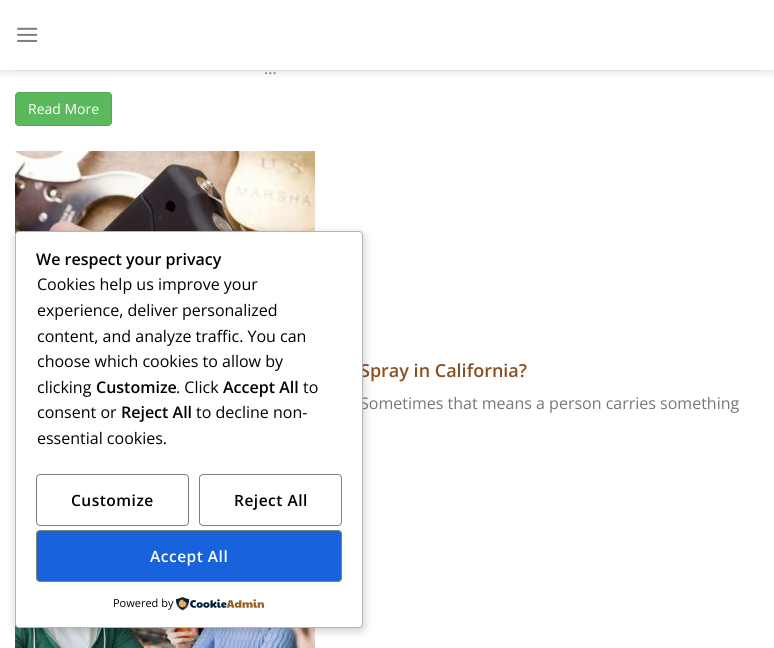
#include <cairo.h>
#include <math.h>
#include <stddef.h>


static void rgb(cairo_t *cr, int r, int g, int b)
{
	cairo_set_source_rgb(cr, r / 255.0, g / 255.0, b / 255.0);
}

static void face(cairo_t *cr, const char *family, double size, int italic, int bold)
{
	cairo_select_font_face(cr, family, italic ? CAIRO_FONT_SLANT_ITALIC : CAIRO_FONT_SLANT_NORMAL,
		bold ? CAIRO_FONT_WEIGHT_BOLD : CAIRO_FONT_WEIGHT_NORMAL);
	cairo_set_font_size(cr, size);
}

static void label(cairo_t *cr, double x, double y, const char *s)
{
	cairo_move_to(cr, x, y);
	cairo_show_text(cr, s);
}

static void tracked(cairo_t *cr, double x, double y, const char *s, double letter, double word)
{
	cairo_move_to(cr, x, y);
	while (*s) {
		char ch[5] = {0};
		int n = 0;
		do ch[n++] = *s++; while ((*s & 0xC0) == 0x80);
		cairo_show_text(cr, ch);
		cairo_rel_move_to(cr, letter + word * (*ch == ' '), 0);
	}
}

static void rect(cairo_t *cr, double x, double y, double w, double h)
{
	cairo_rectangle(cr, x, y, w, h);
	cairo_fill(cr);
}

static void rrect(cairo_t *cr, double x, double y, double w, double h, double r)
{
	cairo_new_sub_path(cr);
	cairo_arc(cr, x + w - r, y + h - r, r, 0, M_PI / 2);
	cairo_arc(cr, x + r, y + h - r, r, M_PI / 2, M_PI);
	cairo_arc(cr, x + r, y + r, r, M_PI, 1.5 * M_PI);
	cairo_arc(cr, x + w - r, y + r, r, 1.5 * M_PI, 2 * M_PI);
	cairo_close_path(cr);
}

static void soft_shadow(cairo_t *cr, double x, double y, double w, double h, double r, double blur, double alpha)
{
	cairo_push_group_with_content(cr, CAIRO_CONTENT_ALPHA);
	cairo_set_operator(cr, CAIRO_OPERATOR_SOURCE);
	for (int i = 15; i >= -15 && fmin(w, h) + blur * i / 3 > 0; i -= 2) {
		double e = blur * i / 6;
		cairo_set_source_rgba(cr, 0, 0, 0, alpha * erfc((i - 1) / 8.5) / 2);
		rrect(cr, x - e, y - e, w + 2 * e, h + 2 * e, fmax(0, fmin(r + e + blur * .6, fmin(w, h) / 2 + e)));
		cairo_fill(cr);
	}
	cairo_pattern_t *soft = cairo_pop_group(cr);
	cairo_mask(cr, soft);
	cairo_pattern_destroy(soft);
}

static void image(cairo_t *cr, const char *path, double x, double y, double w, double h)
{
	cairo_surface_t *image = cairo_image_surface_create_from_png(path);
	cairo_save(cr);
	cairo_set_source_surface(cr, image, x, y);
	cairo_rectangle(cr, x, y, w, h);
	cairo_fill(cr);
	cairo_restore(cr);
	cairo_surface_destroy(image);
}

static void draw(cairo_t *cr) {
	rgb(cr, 255, 255, 255);
	cairo_paint(cr);
	cairo_save(cr);
	cairo_rectangle(cr, 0, 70, 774, 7);
	cairo_clip(cr);
	rgb(cr, 0, 0, 0);
	soft_shadow(cr, 1, 1, 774, 70, 0, 5, 0.15);
	cairo_restore(cr);
	image(cr, "image0.png", 17, 27, 21, 15);
	cairo_set_source_rgba(cr, 0.467, 0.467, 0.467, 0.1);
	rect(cr, 15, 70, 744, 1);
	face(cr, "Open Sans", 16, 0, 0);
	rgb(cr, 119, 119, 119);
	label(cr, 264, 74, "...");
	rgb(cr, 92, 184, 92);
	rrect(cr, 15.5, 92.5, 96, 33, 3.5);
	cairo_fill_preserve(cr);
	rgb(cr, 76, 174, 76);
	cairo_set_line_width(cr, 1);
	cairo_stroke(cr);
	face(cr, "Open Sans", 14, 0, 0);
	rgb(cr, 255, 255, 255);
	label(cr, 28, 114, "Read More");
	image(cr, "image1.png", 15, 151, 300, 84);
	face(cr, "Open Sans SemiBold", 18, 0, 0);
	rgb(cr, 138, 79, 33);
	label(cr, 360, 377, "Spray in California?");
	face(cr, "Open Sans", 16, 0, 0);
	rgb(cr, 119, 119, 119);
	label(cr, 360, 409, "Sometimes that means a person carries something");
	image(cr, "image2.png", 15, 624, 300, 24);
	rgb(cr, 0, 0, 0);
	soft_shadow(cr, 16, 234, 348, 397, 4, 5, 0.2);
	rgb(cr, 255, 255, 255);
	rrect(cr, 15.5, 231.5, 347, 396, 3.5);
	cairo_fill_preserve(cr);
	rgb(cr, 171, 184, 195);
	cairo_stroke(cr);
	face(cr, "Open Sans SemiBold", 16, 0, 0);
	rgb(cr, 0, 0, 0);
	label(cr, 36, 265, "We respect your privacy");
	face(cr, "Open Sans", 16, 0, 0);
	label(cr, 37, 290, "Cookies help us improve your");
	label(cr, 37, 316, "experience, deliver personalized");
	label(cr, 37, 342, "content, and analyze traffic. You can");
	label(cr, 37, 367, "choose which cookies to allow by");
	label(cr, 37, 393, "clicking");
	face(cr, "Open Sans SemiBold", 16, 0, 0);
	label(cr, 96, 393, "Customize");
	face(cr, "Open Sans", 16, 0, 0);
	label(cr, 176, 393, ". Click");
	face(cr, "Open Sans SemiBold", 16, 0, 0);
	label(cr, 223, 393, "Accept All");
	face(cr, "Open Sans", 16, 0, 0);
	label(cr, 303, 393, "to");
	label(cr, 37, 418, "consent or");
	face(cr, "Open Sans SemiBold", 16, 0, 0);
	label(cr, 121, 418, "Reject All");
	face(cr, "Open Sans", 16, 0, 0);
	label(cr, 196, 418, "to decline non-");
	label(cr, 37, 444, "essential cookies.");
	rrect(cr, 36.5, 474.5, 152, 51, 3.5);
	rgb(cr, 128, 128, 128);
	cairo_stroke(cr);
	face(cr, "Open Sans SemiBold", 15.5, 0, 0);
	rgb(cr, 0, 0, 0);
	tracked(cr, 71, 506, "Customize", 0.5, 0);
	rrect(cr, 199.5, 474.5, 142, 51, 3.5);
	rgb(cr, 128, 128, 128);
	cairo_stroke(cr);
	rgb(cr, 0, 0, 0);
	tracked(cr, 234, 506, "Reject All", 0.5, 0);
	rgb(cr, 24, 99, 220);
	rrect(cr, 36.5, 530.5, 305, 51, 3.5);
	cairo_fill_preserve(cr);
	rgb(cr, 128, 128, 128);
	cairo_stroke(cr);
	rgb(cr, 255, 255, 255);
	tracked(cr, 150, 562, "Accept All", 0.5, 0);
	face(cr, "Open Sans", 11, 0, 0);
	rgb(cr, 0, 0, 0);
	label(cr, 113, 607, "Powered by");
	image(cr, "image3.png", 176, 597, 88, 14);
}

int main(void) {
	cairo_surface_t *surface = cairo_image_surface_create(CAIRO_FORMAT_RGB24, 774, 648);
	cairo_t *cr = cairo_create(surface);
	cairo_font_options_t *options = cairo_font_options_create();
	cairo_font_options_set_hint_metrics(options, CAIRO_HINT_METRICS_OFF);
	cairo_font_options_set_hint_style(options, CAIRO_HINT_STYLE_NONE);
	cairo_set_font_options(cr, options);
	cairo_set_miter_limit(cr, 4);
	draw(cr);
	cairo_surface_write_to_png(surface, "render.png");
	cairo_font_options_destroy(options);
	cairo_destroy(cr);
	cairo_surface_destroy(surface);
	return 0;
}
